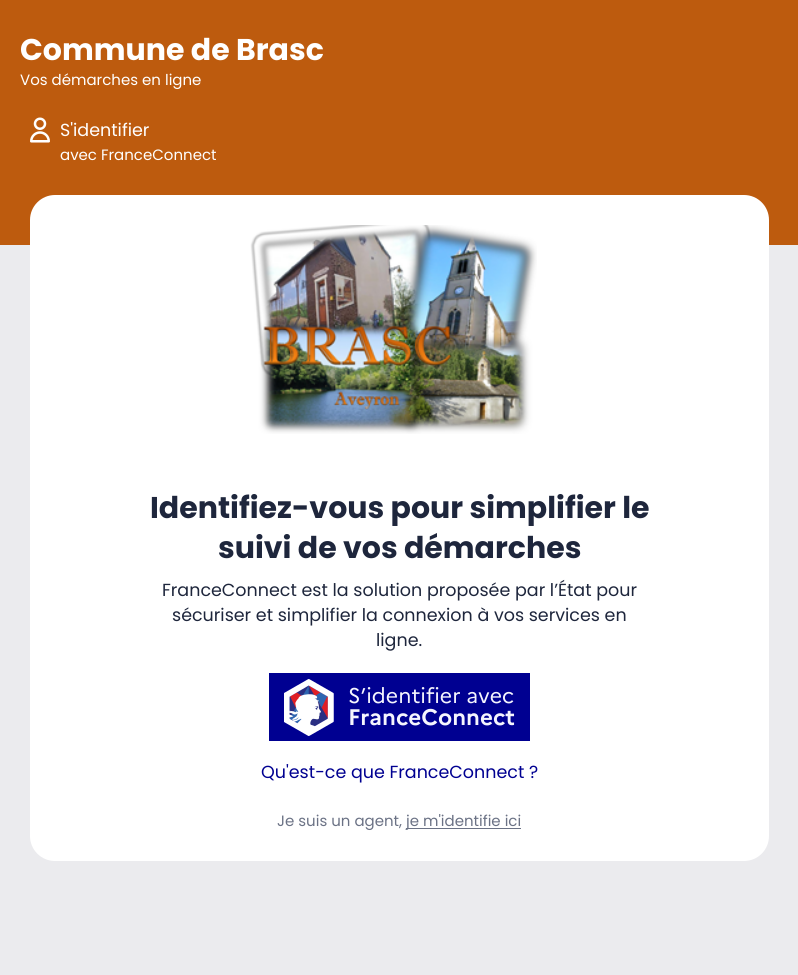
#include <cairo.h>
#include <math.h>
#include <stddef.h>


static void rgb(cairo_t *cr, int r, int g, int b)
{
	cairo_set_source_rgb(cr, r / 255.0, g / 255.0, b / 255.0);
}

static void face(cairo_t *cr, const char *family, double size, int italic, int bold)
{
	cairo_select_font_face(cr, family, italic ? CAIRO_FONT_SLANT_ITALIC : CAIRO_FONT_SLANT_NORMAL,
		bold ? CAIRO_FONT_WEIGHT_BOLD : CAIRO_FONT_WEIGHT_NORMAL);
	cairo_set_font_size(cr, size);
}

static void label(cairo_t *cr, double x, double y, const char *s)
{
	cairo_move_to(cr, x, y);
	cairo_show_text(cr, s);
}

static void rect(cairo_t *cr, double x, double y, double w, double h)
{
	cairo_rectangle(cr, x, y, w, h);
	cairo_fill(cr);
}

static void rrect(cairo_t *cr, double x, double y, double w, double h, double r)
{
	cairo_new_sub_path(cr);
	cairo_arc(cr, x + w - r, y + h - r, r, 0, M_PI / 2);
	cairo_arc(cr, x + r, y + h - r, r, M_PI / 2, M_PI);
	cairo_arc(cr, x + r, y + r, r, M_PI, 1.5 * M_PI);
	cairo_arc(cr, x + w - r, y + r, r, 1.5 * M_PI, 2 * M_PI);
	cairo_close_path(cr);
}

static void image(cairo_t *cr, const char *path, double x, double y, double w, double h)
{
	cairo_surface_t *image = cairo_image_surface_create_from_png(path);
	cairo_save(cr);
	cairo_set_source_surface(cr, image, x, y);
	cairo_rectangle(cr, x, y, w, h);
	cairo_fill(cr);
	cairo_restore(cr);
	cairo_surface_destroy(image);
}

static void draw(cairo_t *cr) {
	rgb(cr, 235, 235, 238);
	cairo_paint(cr);
	rgb(cr, 189, 91, 14);
	rect(cr, 0, 0, 798, 245);
	face(cr, "Poppins", 30, 0, 1);
	rgb(cr, 255, 255, 255);
	label(cr, 20, 60, "Commune de Brasc");
	face(cr, "Poppins", 15, 0, 0);
	label(cr, 20, 85, "Vos démarches en ligne");
	image(cr, "image0.png", 30, 117, 20, 26);
	face(cr, "Poppins", 17.5, 0, 0);
	label(cr, 60, 136, "S'identifier");
	face(cr, "Poppins", 15, 0, 0);
	label(cr, 60, 160, "avec FranceConnect");
	rrect(cr, 30, 195, 739, 666, 25);
	cairo_fill(cr);
	image(cr, "image1.png", 250, 225, 287, 209);
	face(cr, "Poppins", 30, 0, 1);
	rgb(cr, 30, 38, 60);
	label(cr, 150, 518, "Identifiez-vous pour simplifier le");
	label(cr, 218, 558, "suivi de vos démarches");
	face(cr, "Poppins", 17.5, 0, 0);
	label(cr, 162, 596, "FranceConnect est la solution proposée par l’État pour");
	label(cr, 172, 621, "sécuriser et simplifier la connexion à vos services en");
	label(cr, 376, 646, "ligne.");
	rgb(cr, 0, 0, 145);
	rect(cr, 269, 673, 261, 68);
	image(cr, "image2.png", 284, 679, 50, 57);
	face(cr, "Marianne", 21.25, 0, 0);
	rgb(cr, 245, 245, 254);
	label(cr, 348, 703, "S’identifier avec");
	face(cr, "Marianne", 22.5, 0, 1);
	label(cr, 348, 725, "FranceConnect");
	face(cr, "Poppins", 17.5, 0, 0);
	rgb(cr, 0, 0, 145);
	label(cr, 261, 778, "Qu'est-ce que FranceConnect ?");
	face(cr, "Poppins", 15, 0, 0);
	rgb(cr, 107, 114, 133);
	label(cr, 277, 826, "Je suis un agent,");
	rect(cr, 406, 828, 115, 1);
	label(cr, 406, 826, "je m'identifie ici");
}

int main(void) {
	cairo_surface_t *surface = cairo_image_surface_create(CAIRO_FORMAT_RGB24, 798, 975);
	cairo_t *cr = cairo_create(surface);
	cairo_font_options_t *options = cairo_font_options_create();
	cairo_font_options_set_hint_metrics(options, CAIRO_HINT_METRICS_OFF);
	cairo_font_options_set_hint_style(options, CAIRO_HINT_STYLE_NONE);
	cairo_set_font_options(cr, options);
	cairo_set_miter_limit(cr, 4);
	draw(cr);
	cairo_surface_write_to_png(surface, "render.png");
	cairo_font_options_destroy(options);
	cairo_destroy(cr);
	cairo_surface_destroy(surface);
	return 0;
}
